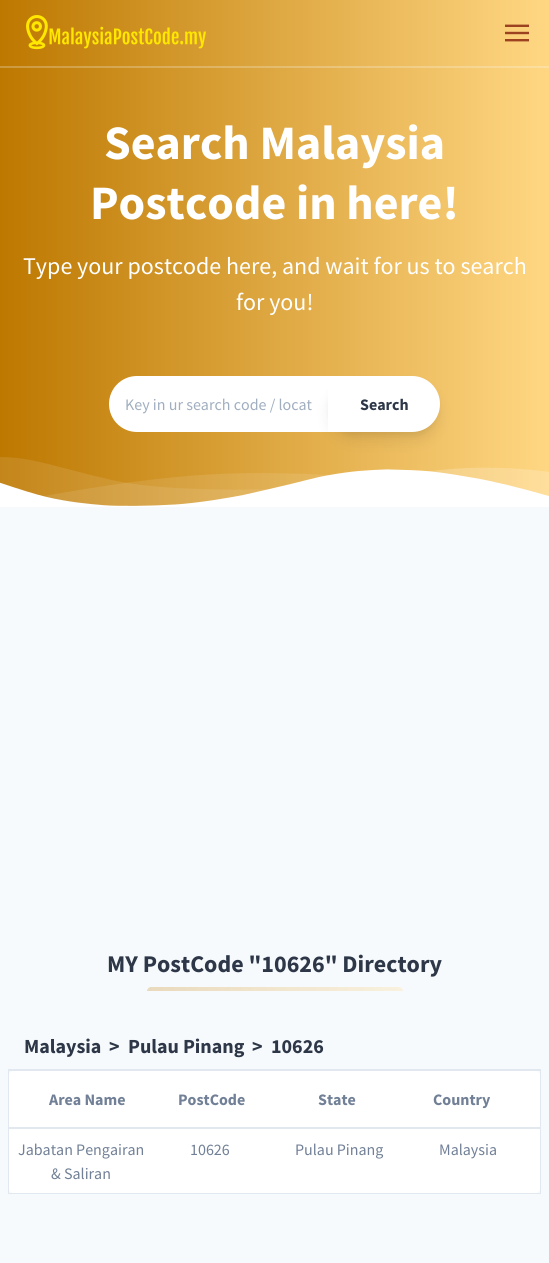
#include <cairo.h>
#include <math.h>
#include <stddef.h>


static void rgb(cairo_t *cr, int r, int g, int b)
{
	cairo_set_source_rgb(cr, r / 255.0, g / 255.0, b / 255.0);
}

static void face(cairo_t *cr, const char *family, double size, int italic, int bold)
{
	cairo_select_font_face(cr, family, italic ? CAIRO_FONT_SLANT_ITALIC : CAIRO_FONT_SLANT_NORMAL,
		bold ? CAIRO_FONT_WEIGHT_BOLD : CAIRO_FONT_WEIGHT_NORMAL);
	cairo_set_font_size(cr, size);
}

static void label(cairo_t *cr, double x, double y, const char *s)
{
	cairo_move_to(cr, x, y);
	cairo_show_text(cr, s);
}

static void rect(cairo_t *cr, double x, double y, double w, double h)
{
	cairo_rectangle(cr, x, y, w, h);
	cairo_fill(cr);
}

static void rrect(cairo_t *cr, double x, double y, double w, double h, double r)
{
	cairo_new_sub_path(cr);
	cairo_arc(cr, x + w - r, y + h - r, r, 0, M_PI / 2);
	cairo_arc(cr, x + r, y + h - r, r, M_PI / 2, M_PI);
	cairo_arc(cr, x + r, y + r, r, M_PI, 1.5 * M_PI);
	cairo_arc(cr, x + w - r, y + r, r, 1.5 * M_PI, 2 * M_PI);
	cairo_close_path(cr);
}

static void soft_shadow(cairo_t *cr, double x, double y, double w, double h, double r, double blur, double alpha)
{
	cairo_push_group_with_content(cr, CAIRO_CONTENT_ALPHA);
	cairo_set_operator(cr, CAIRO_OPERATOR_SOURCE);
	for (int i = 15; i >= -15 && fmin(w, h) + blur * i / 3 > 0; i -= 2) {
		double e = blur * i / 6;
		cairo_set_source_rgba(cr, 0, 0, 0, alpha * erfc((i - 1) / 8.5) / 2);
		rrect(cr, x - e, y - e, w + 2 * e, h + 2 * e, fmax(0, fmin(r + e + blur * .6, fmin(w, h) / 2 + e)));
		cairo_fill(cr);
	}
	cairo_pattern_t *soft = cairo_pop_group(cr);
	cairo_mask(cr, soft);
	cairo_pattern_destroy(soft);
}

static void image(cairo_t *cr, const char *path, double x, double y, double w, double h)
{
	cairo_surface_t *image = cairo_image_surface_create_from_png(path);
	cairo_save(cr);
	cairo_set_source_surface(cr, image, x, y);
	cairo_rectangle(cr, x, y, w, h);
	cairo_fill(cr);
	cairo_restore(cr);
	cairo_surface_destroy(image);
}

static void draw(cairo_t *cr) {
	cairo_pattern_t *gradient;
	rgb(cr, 255, 255, 255);
	cairo_paint(cr);
	gradient = cairo_pattern_create_linear(0, 804, 549, 804);
	cairo_pattern_add_color_stop_rgba(gradient, 0, 0.741, 0.471, 0, 1);
	cairo_pattern_add_color_stop_rgba(gradient, 1, 1, 0.843, 0.514, 1);
	cairo_set_source(cr, gradient);
	cairo_pattern_destroy(gradient);
	rect(cr, 0, 0, 549, 506);
	gradient = cairo_pattern_create_linear(0, 804, 549, 804);
	cairo_pattern_add_color_stop_rgba(gradient, 0, 0.8, 0.6, 0.247, 1);
	cairo_pattern_add_color_stop_rgba(gradient, 1, 0.992, 0.878, 0.631, 1);
	cairo_set_source(cr, gradient);
	cairo_pattern_destroy(gradient);
	rect(cr, 0, 67, 549, 1);
	rect(cr, 0, 66, 549, 1);
	image(cr, "image0.png", 26, 15, 180, 35);
	image(cr, "image1.png", 505, 24, 24, 18);
	face(cr, "Source Sans Pro", 48, 0, 1);
	rgb(cr, 255, 255, 255);
	label(cr, 104, 159, "Search Malaysia");
	label(cr, 90, 219, "Postcode in here!");
	face(cr, "Source Sans Pro", 24, 0, 0);
	label(cr, 23, 274, "Type your postcode here, and wait for us to search");
	label(cr, 236, 310, "for you!");
	cairo_new_path(cr);
	cairo_move_to(cr, 137, 376);
	cairo_line_to(cr, 328, 376);
	cairo_line_to(cr, 328, 432);
	cairo_line_to(cr, 137, 432);
	cairo_curve_to(cr, 121.5, 432, 109, 419.5, 109, 404);
	cairo_curve_to(cr, 109, 388.5, 121.5, 376, 137, 376);
	cairo_close_path(cr);
	cairo_fill(cr);
	face(cr, "Source Sans Pro", 16, 0, 0);
	rgb(cr, 160, 174, 192);
	label(cr, 125, 410, "Key in ur search code / locat");
	rgb(cr, 0, 0, 0);
	soft_shadow(cr, 330, 382, 108, 52, 26, 3, 0.05);
	soft_shadow(cr, 331, 389, 106, 50, 25, 7.5, 0.1);
	rgb(cr, 255, 255, 255);
	cairo_new_path(cr);
	cairo_move_to(cr, 328, 376);
	cairo_line_to(cr, 412, 376);
	cairo_curve_to(cr, 427.5, 376, 440, 388.5, 440, 404);
	cairo_curve_to(cr, 440, 419.5, 427.5, 432, 412, 432);
	cairo_line_to(cr, 328, 432);
	cairo_close_path(cr);
	cairo_fill(cr);
	face(cr, "Source Sans Pro", 16, 0, 1);
	rgb(cr, 45, 55, 72);
	label(cr, 360, 410, "Search");
	image(cr, "image2.png", 0, 457, 549, 50);
	rgb(cr, 247, 250, 252);
	rect(cr, 0, 507, 549, 756);
	face(cr, "Source Sans Pro", 24, 0, 1);
	rgb(cr, 45, 55, 72);
	label(cr, 107, 972, "MY PostCode \"10626\" Directory");
	gradient = cairo_pattern_create_linear(147, 989, 403, 989);
	cairo_pattern_add_color_stop_rgba(gradient, 0, 0.914, 0.855, 0.741, 1);
	cairo_pattern_add_color_stop_rgba(gradient, 1, 0.976, 0.945, 0.871, 1);
	cairo_set_source(cr, gradient);
	cairo_pattern_destroy(gradient);
	cairo_new_path(cr);
	cairo_move_to(cr, 151, 987);
	cairo_line_to(cr, 399, 987);
	cairo_curve_to(cr, 401, 987, 403, 989, 403, 991);
	cairo_line_to(cr, 147, 991);
	cairo_curve_to(cr, 147, 989, 149, 987, 151, 987);
	cairo_close_path(cr);
	cairo_fill(cr);
	rgb(cr, 226, 232, 240);
	rect(cr, 8, 1069, 533, 1);
	face(cr, "Source Sans Pro", 20, 0, 1);
	rgb(cr, 45, 55, 72);
	label(cr, 24, 1053, "Malaysia");
	label(cr, 109, 1053, ">");
	label(cr, 128, 1053, "Pulau Pinang");
	label(cr, 252, 1053, ">");
	label(cr, 271, 1053, "10626");
	rgb(cr, 255, 255, 255);
	rrect(cr, 8, 1070, 533, 124, 8);
	cairo_fill(cr);
	cairo_rectangle(cr, 8.5, 1070.5, 532, 57);
	rgb(cr, 226, 232, 240);
	cairo_set_line_width(cr, 1);
	cairo_stroke(cr);
	face(cr, "Source Sans Pro", 16, 0, 1);
	rgb(cr, 113, 128, 150);
	label(cr, 49, 1105, "Area Name");
	label(cr, 178, 1105, "PostCode");
	label(cr, 318, 1105, "State");
	label(cr, 433, 1105, "Country");
	cairo_rectangle(cr, 8.5, 1128.5, 532, 65);
	rgb(cr, 226, 232, 240);
	cairo_stroke(cr);
	face(cr, "Source Sans Pro", 16, 0, 0);
	rgb(cr, 113, 128, 150);
	label(cr, 18, 1155, "Jabatan Pengairan");
	label(cr, 51, 1179, "& Saliran");
	label(cr, 190, 1155, "10626");
	label(cr, 295, 1155, "Pulau Pinang");
	label(cr, 439, 1155, "Malaysia");
}

int main(void) {
	cairo_surface_t *surface = cairo_image_surface_create(CAIRO_FORMAT_RGB24, 549, 1263);
	cairo_t *cr = cairo_create(surface);
	cairo_font_options_t *options = cairo_font_options_create();
	cairo_font_options_set_hint_metrics(options, CAIRO_HINT_METRICS_OFF);
	cairo_font_options_set_hint_style(options, CAIRO_HINT_STYLE_NONE);
	cairo_set_font_options(cr, options);
	cairo_set_miter_limit(cr, 4);
	draw(cr);
	cairo_surface_write_to_png(surface, "render.png");
	cairo_font_options_destroy(options);
	cairo_destroy(cr);
	cairo_surface_destroy(surface);
	return 0;
}
